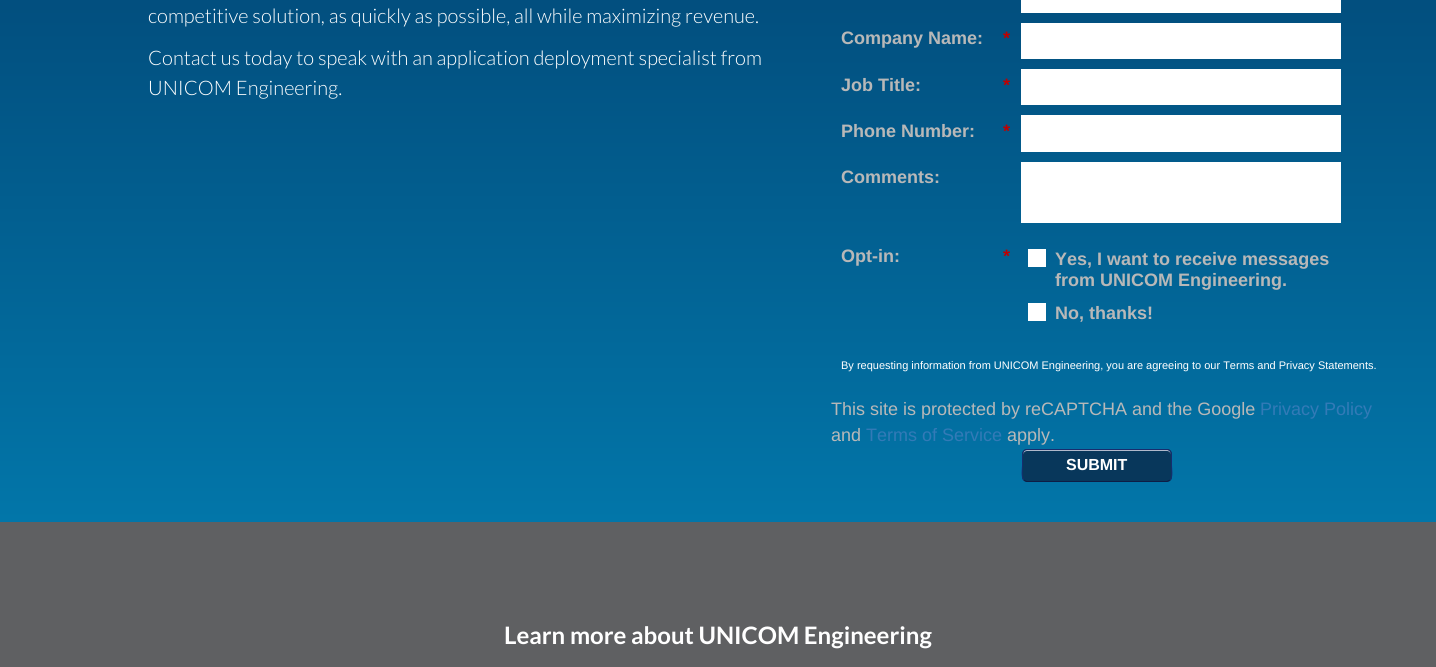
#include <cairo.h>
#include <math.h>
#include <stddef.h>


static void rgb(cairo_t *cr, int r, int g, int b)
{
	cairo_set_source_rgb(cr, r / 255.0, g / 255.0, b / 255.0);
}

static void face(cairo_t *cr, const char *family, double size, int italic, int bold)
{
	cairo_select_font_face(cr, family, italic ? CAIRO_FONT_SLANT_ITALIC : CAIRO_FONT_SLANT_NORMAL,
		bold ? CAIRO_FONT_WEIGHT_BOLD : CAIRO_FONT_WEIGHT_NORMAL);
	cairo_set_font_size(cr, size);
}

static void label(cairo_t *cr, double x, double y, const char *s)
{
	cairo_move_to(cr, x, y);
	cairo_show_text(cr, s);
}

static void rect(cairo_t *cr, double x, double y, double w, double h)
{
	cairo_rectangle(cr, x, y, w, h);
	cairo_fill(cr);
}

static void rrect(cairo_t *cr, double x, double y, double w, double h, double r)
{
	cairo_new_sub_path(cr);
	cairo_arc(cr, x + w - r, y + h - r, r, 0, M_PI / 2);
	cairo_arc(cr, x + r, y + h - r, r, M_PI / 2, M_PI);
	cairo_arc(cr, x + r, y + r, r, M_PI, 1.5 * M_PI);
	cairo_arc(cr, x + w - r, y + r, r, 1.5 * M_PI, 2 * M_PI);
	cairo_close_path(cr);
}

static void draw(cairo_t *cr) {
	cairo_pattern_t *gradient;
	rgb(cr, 95, 96, 98);
	cairo_paint(cr);
	gradient = cairo_pattern_create_linear(718, -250, 718, 522);
	cairo_pattern_add_color_stop_rgba(gradient, 0, 0.008, 0.235, 0.416, 1);
	cairo_pattern_add_color_stop_rgba(gradient, 1, 0.008, 0.463, 0.663, 1);
	cairo_set_source(cr, gradient);
	cairo_pattern_destroy(gradient);
	rect(cr, 0, 0, 1436, 522);
	face(cr, "Lato Light", 20, 0, 0);
	rgb(cr, 255, 255, 255);
	label(cr, 148, 23, "competitive solution, as quickly as possible, all while maximizing revenue.");
	label(cr, 148, 65, "Contact us today to speak with an application deployment specialist from");
	label(cr, 148, 95, "UNICOM Engineering.");
	rect(cr, 1021, 0, 320, 13);
	face(cr, "Liberation Sans", 18, 0, 1);
	rgb(cr, 184, 184, 184);
	label(cr, 841, 44, "Company Name:");
	rgb(cr, 191, 0, 0);
	label(cr, 1003, 44, "*");
	rgb(cr, 255, 255, 255);
	rect(cr, 1021, 23, 320, 36);
	rgb(cr, 184, 184, 184);
	label(cr, 841, 91, "Job Title:");
	rgb(cr, 191, 0, 0);
	label(cr, 1003, 91, "*");
	rgb(cr, 255, 255, 255);
	rect(cr, 1021, 69, 320, 36);
	rgb(cr, 184, 184, 184);
	label(cr, 841, 137, "Phone Number:");
	rgb(cr, 191, 0, 0);
	label(cr, 1003, 137, "*");
	rgb(cr, 255, 255, 255);
	rect(cr, 1021, 115, 320, 37);
	rgb(cr, 184, 184, 184);
	label(cr, 841, 183, "Comments:");
	rgb(cr, 255, 255, 255);
	rect(cr, 1021, 162, 320, 61);
	rgb(cr, 184, 184, 184);
	label(cr, 841, 262, "Opt-in:");
	rgb(cr, 191, 0, 0);
	label(cr, 1003, 262, "*");
	rgb(cr, 255, 255, 255);
	rect(cr, 1028, 249, 18, 18);
	rgb(cr, 184, 184, 184);
	label(cr, 1055, 265, "Yes, I want to receive messages");
	label(cr, 1055, 286, "from UNICOM Engineering.");
	rgb(cr, 255, 255, 255);
	rect(cr, 1028, 303, 18, 18);
	rgb(cr, 184, 184, 184);
	label(cr, 1055, 319, "No, thanks!");
	face(cr, "Liberation Sans", 11, 0, 0);
	rgb(cr, 255, 255, 255);
	label(cr, 841, 369, "By requesting information from UNICOM Engineering, you are agreeing to our Terms and Privacy Statements.");
	face(cr, "Liberation Sans", 18, 0, 0);
	rgb(cr, 184, 184, 184);
	label(cr, 831, 415, "This site is protected by reCAPTCHA and the Google");
	rgb(cr, 51, 122, 183);
	label(cr, 1260, 415, "Privacy Policy");
	rgb(cr, 184, 184, 184);
	label(cr, 831, 441, "and");
	rgb(cr, 51, 122, 183);
	label(cr, 866, 441, "Terms of Service");
	rgb(cr, 184, 184, 184);
	label(cr, 1007, 441, "apply.");
	rgb(cr, 8, 55, 91);
	rrect(cr, 1022, 449, 150, 33, 5);
	cairo_fill(cr);
	rgb(cr, 177, 185, 203);
	cairo_new_path(cr);
	cairo_move_to(cr, 1027, 451);
	cairo_line_to(cr, 1167, 451);
	cairo_curve_to(cr, 1169, 451, 1171, 453, 1171, 455);
	cairo_curve_to(cr, 1171, 453, 1170, 451, 1168, 450);
	cairo_line_to(cr, 1027, 450);
	cairo_curve_to(cr, 1024, 450, 1023, 452, 1023, 455);
	cairo_curve_to(cr, 1023, 453, 1025, 451, 1027, 451);
	cairo_close_path(cr);
	cairo_fill(cr);
	cairo_new_path(cr);
	cairo_move_to(cr, 1170, 480);
	cairo_line_to(cr, 1167, 481.5);
	cairo_line_to(cr, 1026.5, 481.5);
	cairo_line_to(cr, 1024, 480);
	rgb(cr, 14, 29, 69);
	cairo_set_line_width(cr, 1);
	cairo_stroke(cr);
	cairo_new_path(cr);
	cairo_move_to(cr, 1024, 480);
	cairo_curve_to(cr, 1021, 477.5, 1022.5, 468.5, 1022.5, 465.5);
	cairo_line_to(cr, 1022.5, 458);
	cairo_curve_to(cr, 1022.5, 454.5, 1022.5, 449.5, 1027, 449.5);
	cairo_line_to(cr, 1167, 449.5);
	cairo_curve_to(cr, 1171.5, 449.5, 1171.5, 454.5, 1171.5, 458);
	cairo_line_to(cr, 1171.5, 465.5);
	cairo_curve_to(cr, 1171.5, 468.5, 1173, 477.5, 1170, 480);
	rgb(cr, 23, 45, 110);
	cairo_stroke(cr);
	face(cr, "Liberation Sans", 16, 0, 1);
	rgb(cr, 255, 255, 255);
	label(cr, 1066, 470, "SUBMIT");
	face(cr, "Lato", 24, 0, 1);
	label(cr, 504, 644, "Learn more about UNICOM Engineering");
}

int main(void) {
	cairo_surface_t *surface = cairo_image_surface_create(CAIRO_FORMAT_RGB24, 1436, 667);
	cairo_t *cr = cairo_create(surface);
	cairo_font_options_t *options = cairo_font_options_create();
	cairo_font_options_set_hint_metrics(options, CAIRO_HINT_METRICS_OFF);
	cairo_font_options_set_hint_style(options, CAIRO_HINT_STYLE_NONE);
	cairo_set_font_options(cr, options);
	cairo_set_miter_limit(cr, 4);
	draw(cr);
	cairo_surface_write_to_png(surface, "render.png");
	cairo_font_options_destroy(options);
	cairo_destroy(cr);
	cairo_surface_destroy(surface);
	return 0;
}
